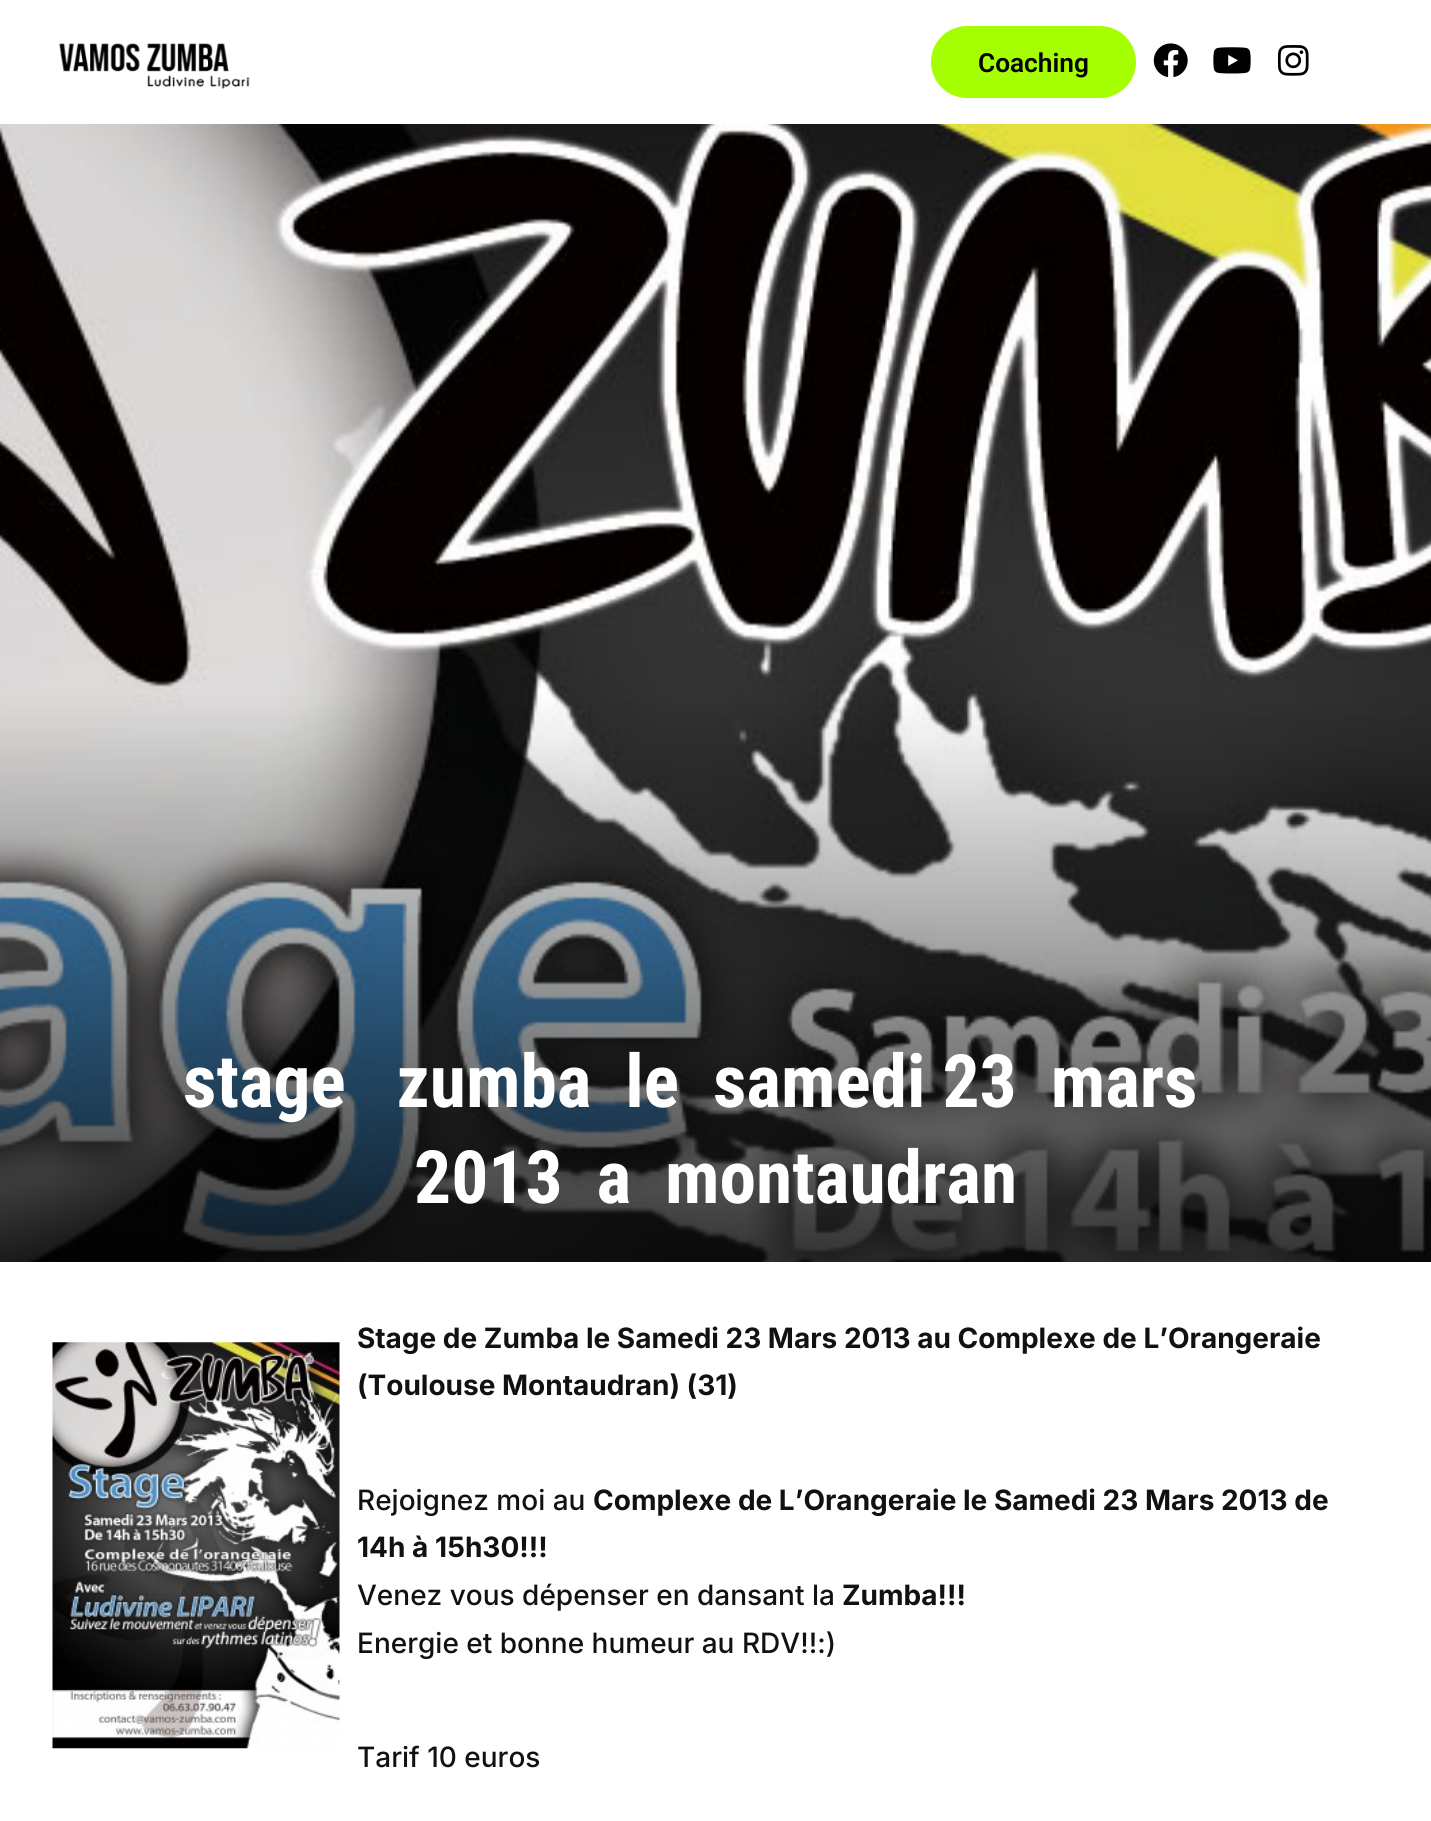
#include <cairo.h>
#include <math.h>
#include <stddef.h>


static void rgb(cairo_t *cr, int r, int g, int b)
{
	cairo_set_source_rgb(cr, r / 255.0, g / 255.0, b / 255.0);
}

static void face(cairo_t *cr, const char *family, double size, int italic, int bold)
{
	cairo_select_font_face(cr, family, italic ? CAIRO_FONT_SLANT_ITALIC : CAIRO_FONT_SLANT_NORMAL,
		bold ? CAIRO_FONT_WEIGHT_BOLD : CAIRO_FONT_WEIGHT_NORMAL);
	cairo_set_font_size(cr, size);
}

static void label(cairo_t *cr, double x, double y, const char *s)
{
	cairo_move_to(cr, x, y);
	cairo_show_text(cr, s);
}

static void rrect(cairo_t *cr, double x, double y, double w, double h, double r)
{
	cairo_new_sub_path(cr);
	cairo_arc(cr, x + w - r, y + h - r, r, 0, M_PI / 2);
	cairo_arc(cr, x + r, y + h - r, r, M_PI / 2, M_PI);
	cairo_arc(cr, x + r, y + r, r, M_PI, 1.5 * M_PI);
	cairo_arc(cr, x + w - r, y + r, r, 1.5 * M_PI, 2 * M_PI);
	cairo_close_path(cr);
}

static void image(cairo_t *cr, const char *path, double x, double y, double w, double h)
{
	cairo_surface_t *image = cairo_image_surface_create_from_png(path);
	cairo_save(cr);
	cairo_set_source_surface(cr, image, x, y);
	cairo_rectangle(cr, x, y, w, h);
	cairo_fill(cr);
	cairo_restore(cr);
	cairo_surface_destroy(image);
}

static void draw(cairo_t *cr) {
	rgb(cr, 255, 255, 255);
	cairo_paint(cr);
	image(cr, "image0.png", 59, 43, 191, 46);
	rgb(cr, 166, 255, 0);
	rrect(cr, 933, 28, 201, 68, 34);
	cairo_fill_preserve(cr);
	cairo_set_line_width(cr, 4);
	cairo_stroke(cr);
	face(cr, "Roboto SemiBold", 26.25, 0, 0);
	rgb(cr, 0, 0, 0);
	label(cr, 978, 72, "Coaching");
	image(cr, "image1.png", 1153, 43, 35, 35);
	image(cr, "image2.png", 1213, 47, 38, 27);
	image(cr, "image3.png", 1277, 45, 32, 31);
	image(cr, "image4.png", 0, 124, 1431, 1138);
	face(cr, "Roboto Condensed", 73.5, 0, 1);
	rgb(cr, 255, 255, 255);
	label(cr, 183, 1107, "stage   zumba  le  samedi 23  mars");
	label(cr, 414, 1203, "2013  a  montaudran");
	image(cr, "image5.png", 52, 1342, 288, 407);
	face(cr, "Inter", 28, 0, 1);
	rgb(cr, 17, 17, 17);
	label(cr, 357, 1348, "Stage de Zumba le Samedi 23 Mars 2013 au Complexe de L’Orangeraie");
	label(cr, 357, 1395, "(Toulouse Montaudran) (31)");
	face(cr, "Inter Medium", 28, 0, 0);
	label(cr, 357, 1510, "Rejoignez moi au");
	face(cr, "Inter", 28, 0, 1);
	label(cr, 593, 1510, "Complexe de L’Orangeraie le Samedi 23 Mars 2013 de");
	label(cr, 357, 1557, "14h à 15h30!!!");
	face(cr, "Inter Medium", 28, 0, 0);
	label(cr, 357, 1605, "Venez vous dépenser en dansant la");
	face(cr, "Inter", 28, 0, 1);
	label(cr, 842, 1605, "Zumba!!!");
	face(cr, "Inter Medium", 28, 0, 0);
	label(cr, 357, 1653, "Energie et bonne humeur au RDV!!:)");
	label(cr, 357, 1767, "Tarif 10 euros");
}

int main(void) {
	cairo_surface_t *surface = cairo_image_surface_create(CAIRO_FORMAT_RGB24, 1431, 1821);
	cairo_t *cr = cairo_create(surface);
	cairo_font_options_t *options = cairo_font_options_create();
	cairo_font_options_set_hint_metrics(options, CAIRO_HINT_METRICS_OFF);
	cairo_font_options_set_hint_style(options, CAIRO_HINT_STYLE_NONE);
	cairo_set_font_options(cr, options);
	cairo_set_miter_limit(cr, 4);
	draw(cr);
	cairo_surface_write_to_png(surface, "render.png");
	cairo_font_options_destroy(options);
	cairo_destroy(cr);
	cairo_surface_destroy(surface);
	return 0;
}
